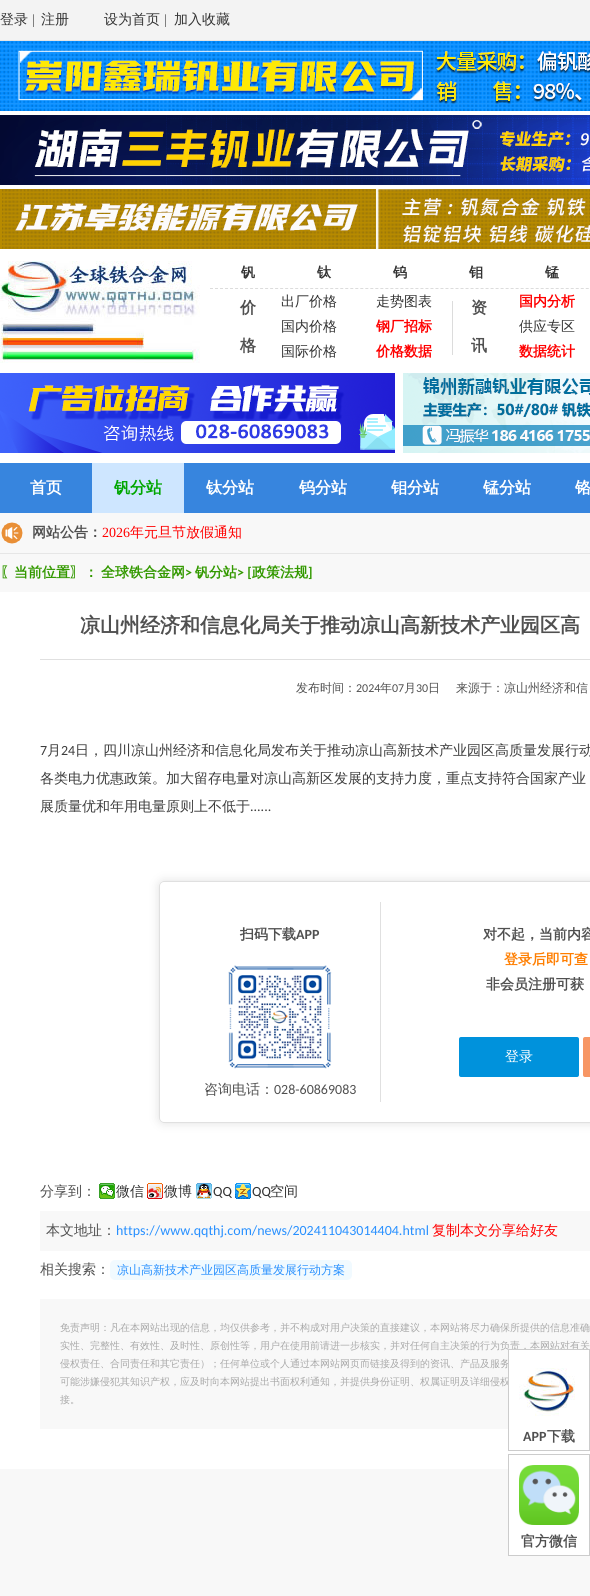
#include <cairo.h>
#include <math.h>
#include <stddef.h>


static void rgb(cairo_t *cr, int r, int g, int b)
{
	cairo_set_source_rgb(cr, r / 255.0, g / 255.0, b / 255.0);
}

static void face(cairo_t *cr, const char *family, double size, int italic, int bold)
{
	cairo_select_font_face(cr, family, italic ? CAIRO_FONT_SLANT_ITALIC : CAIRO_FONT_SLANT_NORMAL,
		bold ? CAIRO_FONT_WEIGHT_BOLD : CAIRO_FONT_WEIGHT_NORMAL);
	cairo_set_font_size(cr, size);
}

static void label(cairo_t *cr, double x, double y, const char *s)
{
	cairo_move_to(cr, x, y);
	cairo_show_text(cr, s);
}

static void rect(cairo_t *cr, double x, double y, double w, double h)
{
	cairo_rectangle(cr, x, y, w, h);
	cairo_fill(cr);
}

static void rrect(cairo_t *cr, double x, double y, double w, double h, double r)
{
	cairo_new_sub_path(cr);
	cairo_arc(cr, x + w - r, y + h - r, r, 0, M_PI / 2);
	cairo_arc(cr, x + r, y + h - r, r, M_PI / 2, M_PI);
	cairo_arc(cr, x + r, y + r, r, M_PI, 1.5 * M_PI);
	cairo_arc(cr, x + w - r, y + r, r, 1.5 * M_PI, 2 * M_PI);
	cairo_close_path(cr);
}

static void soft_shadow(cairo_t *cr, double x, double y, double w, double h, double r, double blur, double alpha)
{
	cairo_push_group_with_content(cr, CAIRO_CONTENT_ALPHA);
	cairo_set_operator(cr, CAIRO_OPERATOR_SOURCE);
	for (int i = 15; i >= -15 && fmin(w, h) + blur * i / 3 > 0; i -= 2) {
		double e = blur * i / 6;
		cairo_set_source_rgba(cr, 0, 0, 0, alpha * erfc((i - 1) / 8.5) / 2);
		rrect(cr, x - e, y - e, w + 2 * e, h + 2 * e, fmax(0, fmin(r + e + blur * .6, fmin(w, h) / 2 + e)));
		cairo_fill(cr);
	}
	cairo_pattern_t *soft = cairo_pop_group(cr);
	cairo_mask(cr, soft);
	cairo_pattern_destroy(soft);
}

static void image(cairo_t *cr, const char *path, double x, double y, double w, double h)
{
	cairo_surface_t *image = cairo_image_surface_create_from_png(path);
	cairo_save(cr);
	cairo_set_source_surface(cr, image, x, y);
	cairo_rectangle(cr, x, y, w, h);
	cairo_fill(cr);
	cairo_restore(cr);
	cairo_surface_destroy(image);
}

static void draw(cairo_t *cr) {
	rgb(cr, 248, 248, 248);
	cairo_paint(cr);
	rgb(cr, 243, 243, 243);
	rect(cr, 0, 0, 590, 40);
	rgb(cr, 229, 229, 229);
	rect(cr, 0, 40, 590, 1);
	face(cr, "WenQuanYi Zen Hei Medium", 14, 0, 0);
	rgb(cr, 51, 51, 51);
	label(cr, 0, 24, "登录");
	face(cr, "Liberation Serif", 14, 0, 0);
	rgb(cr, 80, 80, 80);
	label(cr, 32, 24, "|");
	face(cr, "WenQuanYi Zen Hei Medium", 14, 0, 0);
	rgb(cr, 51, 51, 51);
	label(cr, 41, 24, "注册");
	label(cr, 104, 24, "设为首页");
	face(cr, "Liberation Serif", 14, 0, 0);
	rgb(cr, 80, 80, 80);
	label(cr, 164, 24, "|");
	face(cr, "WenQuanYi Zen Hei Medium", 14, 0, 0);
	rgb(cr, 51, 51, 51);
	label(cr, 174, 24, "加入收藏");
	rgb(cr, 255, 255, 255);
	rect(cr, 0, 111, 590, 352);
	image(cr, "image0.png", 0, 41, 590, 70);
	image(cr, "image1.png", 0, 115, 590, 70);
	image(cr, "image2.png", 0, 189, 590, 60);
	image(cr, "image3.png", 0, 261, 200, 102);
	cairo_new_path(cr);
	cairo_move_to(cr, 210, 288.5);
	cairo_line_to(cr, 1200, 288.5);
	rgb(cr, 220, 220, 220);
	cairo_set_line_width(cr, 1);
	cairo_set_dash(cr, (double[]){3, 2.01}, 2, 0);
	cairo_stroke(cr);
	face(cr, "WenQuanYi Zen Hei", 14, 0, 1);
	rgb(cr, 51, 51, 51);
	label(cr, 241, 277, "钒");
	label(cr, 317, 277, "钛");
	label(cr, 393, 277, "钨");
	label(cr, 469, 277, "钼");
	label(cr, 545, 277, "锰");
	face(cr, "WenQuanYi Zen Hei", 16, 0, 1);
	rgb(cr, 80, 80, 80);
	label(cr, 240, 313, "价");
	label(cr, 240, 351, "格");
	face(cr, "WenQuanYi Zen Hei Medium", 14, 0, 0);
	rgb(cr, 51, 51, 51);
	label(cr, 281, 306, "出厂价格");
	label(cr, 376, 306, "走势图表");
	rgb(cr, 220, 220, 220);
	rect(cr, 452, 301, 1, 54);
	rgb(cr, 51, 51, 51);
	label(cr, 281, 331, "国内价格");
	face(cr, "WenQuanYi Zen Hei", 14, 0, 1);
	rgb(cr, 255, 0, 0);
	label(cr, 376, 331, "钢厂招标");
	face(cr, "WenQuanYi Zen Hei Medium", 14, 0, 0);
	rgb(cr, 51, 51, 51);
	label(cr, 281, 356, "国际价格");
	face(cr, "WenQuanYi Zen Hei", 14, 0, 1);
	rgb(cr, 255, 0, 0);
	label(cr, 376, 356, "价格数据");
	face(cr, "WenQuanYi Zen Hei", 16, 0, 1);
	rgb(cr, 80, 80, 80);
	label(cr, 471, 313, "资");
	label(cr, 471, 351, "讯");
	face(cr, "WenQuanYi Zen Hei", 14, 0, 1);
	rgb(cr, 255, 0, 0);
	label(cr, 519, 306, "国内分析");
	face(cr, "WenQuanYi Zen Hei Medium", 14, 0, 0);
	rgb(cr, 51, 51, 51);
	label(cr, 519, 331, "供应专区");
	face(cr, "WenQuanYi Zen Hei", 14, 0, 1);
	rgb(cr, 255, 0, 0);
	label(cr, 519, 356, "数据统计");
	image(cr, "image4.png", 0, 373, 395, 80);
	image(cr, "image5.png", 403, 373, 187, 80);
	rgb(cr, 55, 133, 222);
	rect(cr, 0, 463, 590, 50);
	face(cr, "WenQuanYi Zen Hei", 16, 0, 1);
	rgb(cr, 255, 255, 255);
	label(cr, 30, 493, "首页");
	rgb(cr, 206, 230, 255);
	rect(cr, 92, 463, 92, 50);
	rgb(cr, 0, 166, 0);
	label(cr, 114, 493, "钒分站");
	rgb(cr, 255, 255, 255);
	label(cr, 206, 493, "钛分站");
	label(cr, 299, 493, "钨分站");
	label(cr, 391, 493, "钼分站");
	label(cr, 483, 493, "锰分站");
	label(cr, 575, 493, "铬");
	rgb(cr, 230, 230, 230);
	rect(cr, 0, 553, 590, 1);
	image(cr, "image6.png", 1, 522, 22, 22);
	face(cr, "WenQuanYi Zen Hei", 14, 0, 1);
	rgb(cr, 80, 80, 80);
	label(cr, 32, 537, "网站公告：");
	face(cr, "Liberation Serif", 14, 0, 0);
	rgb(cr, 255, 0, 0);
	label(cr, 102, 537, "2026");
	face(cr, "WenQuanYi Zen Hei Medium", 14, 0, 0);
	label(cr, 130, 537, "年元旦节放假通知");
	face(cr, "WenQuanYi Zen Hei", 14, 0, 1);
	rgb(cr, 51, 153, 0);
	label(cr, 0, 577, "〖当前位置〗：");
	label(cr, 101, 577, "全球铁合金网");
	face(cr, "Carlito", 14, 0, 1);
	label(cr, 185, 577, ">");
	face(cr, "WenQuanYi Zen Hei", 14, 0, 1);
	label(cr, 195, 577, "钒分站");
	face(cr, "Carlito", 14, 0, 1);
	label(cr, 237, 577, "> [");
	face(cr, "WenQuanYi Zen Hei", 14, 0, 1);
	label(cr, 252, 577, "政策法规");
	face(cr, "Carlito", 14, 0, 1);
	label(cr, 308, 577, "]");
	rgb(cr, 255, 255, 255);
	rect(cr, 0, 592, 590, 877);
	rgb(cr, 224, 224, 224);
	rect(cr, 40, 659, 550, 1);
	face(cr, "WenQuanYi Zen Hei", 20, 0, 1);
	rgb(cr, 80, 80, 80);
	label(cr, 80, 632, "凉山州经济和信息化局关于推动凉山高新技术产业园区高");
	face(cr, "WenQuanYi Zen Hei Medium", 12, 0, 0);
	label(cr, 296, 692, "发布时间：");
	face(cr, "Carlito", 12, 0, 0);
	label(cr, 356, 692, "2024");
	face(cr, "WenQuanYi Zen Hei Medium", 12, 0, 0);
	label(cr, 380, 692, "年");
	face(cr, "Carlito", 12, 0, 0);
	label(cr, 392, 692, "07");
	face(cr, "WenQuanYi Zen Hei Medium", 12, 0, 0);
	label(cr, 404, 692, "月");
	face(cr, "Carlito", 12, 0, 0);
	label(cr, 416, 692, "30");
	face(cr, "WenQuanYi Zen Hei Medium", 12, 0, 0);
	label(cr, 428, 692, "日");
	label(cr, 456, 692, "来源于：凉山州经济和信");
	face(cr, "Carlito", 14, 0, 0);
	rgb(cr, 60, 60, 60);
	label(cr, 40, 755, "7");
	face(cr, "WenQuanYi Zen Hei Medium", 14, 0, 0);
	label(cr, 47, 755, "月");
	face(cr, "Carlito", 14, 0, 0);
	label(cr, 61, 755, "24");
	face(cr, "WenQuanYi Zen Hei Medium", 14, 0, 0);
	label(cr, 75, 755, "日，四川凉山州经济和信息化局发布关于推动凉山高新技术产业园区高质量发展行动");
	label(cr, 40, 783, "各类电力优惠政策。加大留存电量对凉山高新区发展的支持力度，重点支持符合国家产业");
	label(cr, 40, 811, "展质量优和年用电量原则上不低于");
	face(cr, "Carlito", 14, 0, 0);
	label(cr, 250, 811, "......");
	cairo_save(cr);
	cairo_set_fill_rule(cr, CAIRO_FILL_RULE_EVEN_ODD);
	cairo_new_path(cr);
	cairo_move_to(cr, 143, 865);
	cairo_line_to(cr, 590, 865);
	cairo_line_to(cr, 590, 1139);
	cairo_line_to(cr, 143, 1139);
	cairo_close_path(cr);
	cairo_move_to(cr, 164, 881);
	cairo_line_to(cr, 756, 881);
	cairo_curve_to(cr, 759, 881, 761, 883, 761, 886);
	cairo_line_to(cr, 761, 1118);
	cairo_curve_to(cr, 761, 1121, 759, 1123, 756, 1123);
	cairo_line_to(cr, 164, 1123);
	cairo_curve_to(cr, 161, 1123, 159, 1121, 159, 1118);
	cairo_line_to(cr, 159, 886);
	cairo_curve_to(cr, 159, 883, 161, 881, 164, 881);
	cairo_close_path(cr);
	cairo_clip(cr);
	rgb(cr, 224, 224, 224);
	soft_shadow(cr, 159, 881, 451, 242, 5, 5, 1);
	cairo_restore(cr);
	rrect(cr, 159.5, 881.5, 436, 241, 4.5);
	rgb(cr, 224, 224, 224);
	cairo_set_dash(cr, NULL, 0, 0);
	cairo_stroke(cr);
	rect(cr, 380, 902, 1, 200);
	face(cr, "WenQuanYi Zen Hei", 14, 0, 1);
	rgb(cr, 80, 80, 80);
	label(cr, 240, 939, "扫码下载");
	face(cr, "Carlito", 14, 0, 1);
	label(cr, 296, 939, "APP");
	image(cr, "image7.png", 228, 965, 104, 104);
	face(cr, "WenQuanYi Zen Hei Medium", 14, 0, 0);
	label(cr, 204, 1094, "咨询电话：");
	face(cr, "Carlito", 14, 0, 0);
	label(cr, 274, 1094, "028-60869083");
	face(cr, "WenQuanYi Zen Hei", 14, 0, 1);
	label(cr, 483, 939, "对不起，当前内容");
	rgb(cr, 255, 126, 0);
	label(cr, 504, 964, "登录后即可查");
	rgb(cr, 80, 80, 80);
	label(cr, 486, 989, "非会员注册可获");
	rgb(cr, 0, 146, 220);
	rrect(cr, 459, 1037, 120, 40, 2);
	cairo_fill(cr);
	face(cr, "WenQuanYi Zen Hei Medium", 14, 0, 0);
	rgb(cr, 255, 255, 255);
	label(cr, 505, 1061, "登录");
	rgb(cr, 247, 150, 100);
	rrect(cr, 583, 1037, 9, 40, 2);
	cairo_fill(cr);
	rgb(cr, 80, 80, 80);
	label(cr, 40, 1196, "分享到：");
	image(cr, "image8.png", 99, 1183, 16, 16);
	rgb(cr, 51, 51, 51);
	label(cr, 116, 1196, "微信");
	image(cr, "image9.png", 147, 1183, 16, 16);
	label(cr, 164, 1196, "微博");
	image(cr, "image10.png", 196, 1183, 16, 16);
	face(cr, "Carlito", 14, 0, 0);
	label(cr, 213, 1196, "QQ");
	image(cr, "image11.png", 235, 1183, 16, 16);
	label(cr, 252, 1196, "QQ");
	face(cr, "WenQuanYi Zen Hei Medium", 14, 0, 0);
	label(cr, 270, 1196, "空间");
	rgb(cr, 248, 248, 248);
	rect(cr, 40, 1211, 550, 40);
	rgb(cr, 80, 80, 80);
	label(cr, 46, 1235, "本文地址：");
	face(cr, "Carlito", 14, 0, 0);
	rgb(cr, 40, 144, 255);
	label(cr, 116, 1235, "https://www.qqthj.com/news/202411043014404.html");
	face(cr, "WenQuanYi Zen Hei Medium", 14, 0, 0);
	rgb(cr, 255, 0, 0);
	label(cr, 432, 1235, "复制本文分享给好友");
	rgb(cr, 80, 80, 80);
	label(cr, 40, 1274, "相关搜索：");
	rgb(cr, 241, 250, 255);
	rrect(cr, 110, 1260, 242, 20, 5);
	cairo_fill(cr);
	face(cr, "WenQuanYi Zen Hei Medium", 12, 0, 0);
	rgb(cr, 40, 144, 255);
	label(cr, 117, 1274, "凉山高新技术产业园区高质量发展行动方案");
	rgb(cr, 248, 248, 248);
	rect(cr, 40, 1299, 550, 130);
	face(cr, "WenQuanYi Zen Hei Medium", 10, 0, 0);
	rgb(cr, 169, 169, 169);
	label(cr, 60, 1331, "免责声明：凡在本网站出现的信息，均仅供参考，并不构成对用户决策的直接建议，本网站将尽力确保所提供的信息准确");
	label(cr, 60, 1349, "实性、完整性、有效性、及时性、原创性等，用户在使用前请进一步核实，并对任何自主决策的行为负责，本网站对有关");
	label(cr, 60, 1367, "侵权责任、合同责任和其它责任）；任何单位或个人通过本网站网页而链接及得到的资讯、产品及服务");
	label(cr, 60, 1385, "可能涉嫌侵犯其知识产权，应及时向本网站提出书面权利通知，并提供身份证明、权属证明及详细侵权");
	label(cr, 60, 1403, "接。");
	rgb(cr, 255, 255, 255);
	rect(cr, 509, 1350, 80, 79);
	cairo_rectangle(cr, 508.5, 1349.5, 81, 101);
	rgb(cr, 204, 204, 204);
	cairo_stroke(cr);
	image(cr, "image12.png", 519, 1368, 56, 48);
	face(cr, "Carlito", 14, 0, 1);
	rgb(cr, 80, 80, 80);
	label(cr, 523, 1441, "APP");
	face(cr, "WenQuanYi Zen Hei", 14, 0, 1);
	label(cr, 547, 1441, "下载");
	rgb(cr, 255, 255, 255);
	rect(cr, 509, 1469, 80, 86);
	cairo_rectangle(cr, 508.5, 1454.5, 81, 101);
	rgb(cr, 204, 204, 204);
	cairo_stroke(cr);
	image(cr, "image13.png", 519, 1465, 60, 60);
	rgb(cr, 80, 80, 80);
	label(cr, 521, 1546, "官方微信");
}

int main(void) {
	cairo_surface_t *surface = cairo_image_surface_create(CAIRO_FORMAT_RGB24, 590, 1596);
	cairo_t *cr = cairo_create(surface);
	cairo_font_options_t *options = cairo_font_options_create();
	cairo_font_options_set_hint_metrics(options, CAIRO_HINT_METRICS_OFF);
	cairo_font_options_set_hint_style(options, CAIRO_HINT_STYLE_NONE);
	cairo_set_font_options(cr, options);
	cairo_set_miter_limit(cr, 4);
	draw(cr);
	cairo_surface_write_to_png(surface, "render.png");
	cairo_font_options_destroy(options);
	cairo_destroy(cr);
	cairo_surface_destroy(surface);
	return 0;
}
